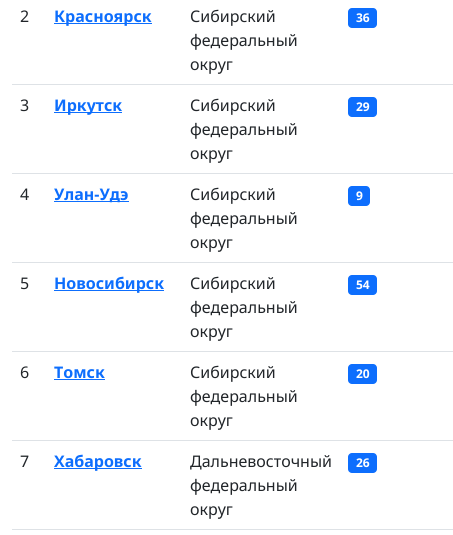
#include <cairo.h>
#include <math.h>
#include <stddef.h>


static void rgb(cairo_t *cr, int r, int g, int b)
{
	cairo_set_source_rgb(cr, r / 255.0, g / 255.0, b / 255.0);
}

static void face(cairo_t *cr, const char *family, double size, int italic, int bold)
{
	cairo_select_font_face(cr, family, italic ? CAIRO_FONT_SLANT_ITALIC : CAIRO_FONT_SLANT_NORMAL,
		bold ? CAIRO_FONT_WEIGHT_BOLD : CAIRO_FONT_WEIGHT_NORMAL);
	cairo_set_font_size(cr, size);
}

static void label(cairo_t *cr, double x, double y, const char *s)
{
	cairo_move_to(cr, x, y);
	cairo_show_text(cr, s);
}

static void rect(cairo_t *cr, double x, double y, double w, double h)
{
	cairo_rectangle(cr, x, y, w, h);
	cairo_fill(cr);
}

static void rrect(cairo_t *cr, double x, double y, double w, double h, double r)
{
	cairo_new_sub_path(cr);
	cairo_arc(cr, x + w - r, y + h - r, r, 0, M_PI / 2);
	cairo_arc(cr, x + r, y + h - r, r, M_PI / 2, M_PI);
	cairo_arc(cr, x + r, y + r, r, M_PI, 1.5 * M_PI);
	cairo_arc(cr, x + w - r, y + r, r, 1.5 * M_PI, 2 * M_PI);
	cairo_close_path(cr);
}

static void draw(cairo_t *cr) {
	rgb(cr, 255, 255, 255);
	cairo_paint(cr);
	face(cr, "Noto Sans", 16, 0, 0);
	rgb(cr, 33, 37, 41);
	label(cr, 20, 22, "2");
	rgb(cr, 13, 110, 253);
	rect(cr, 54, 23, 98, 1);
	face(cr, "Noto Sans", 16, 0, 1);
	label(cr, 54, 22, "Красноярск");
	face(cr, "Noto Sans", 16, 0, 0);
	rgb(cr, 33, 37, 41);
	label(cr, 190, 22, "Сибирский");
	label(cr, 190, 46, "федеральный");
	label(cr, 190, 70, "округ");
	rgb(cr, 222, 226, 230);
	rect(cr, 12, 84, 441, 1);
	rgb(cr, 13, 110, 253);
	rrect(cr, 348, 8, 29, 20, 4);
	cairo_fill(cr);
	face(cr, "Noto Sans", 12, 0, 1);
	rgb(cr, 255, 255, 255);
	label(cr, 356, 22, "36");
	face(cr, "Noto Sans", 16, 0, 0);
	rgb(cr, 33, 37, 41);
	label(cr, 20, 111, "3");
	rgb(cr, 13, 110, 253);
	rect(cr, 54, 112, 68, 1);
	face(cr, "Noto Sans", 16, 0, 1);
	label(cr, 54, 111, "Иркутск");
	face(cr, "Noto Sans", 16, 0, 0);
	rgb(cr, 33, 37, 41);
	label(cr, 190, 111, "Сибирский");
	label(cr, 190, 135, "федеральный");
	label(cr, 190, 159, "округ");
	rgb(cr, 222, 226, 230);
	rect(cr, 12, 173, 441, 1);
	rgb(cr, 13, 110, 253);
	rrect(cr, 348, 97, 29, 20, 4);
	cairo_fill(cr);
	face(cr, "Noto Sans", 12, 0, 1);
	rgb(cr, 255, 255, 255);
	label(cr, 356, 111, "29");
	face(cr, "Noto Sans", 16, 0, 0);
	rgb(cr, 33, 37, 41);
	label(cr, 20, 200, "4");
	rgb(cr, 13, 110, 253);
	rect(cr, 54, 201, 75, 1);
	face(cr, "Noto Sans", 16, 0, 1);
	label(cr, 54, 200, "Улан-Удэ");
	face(cr, "Noto Sans", 16, 0, 0);
	rgb(cr, 33, 37, 41);
	label(cr, 190, 200, "Сибирский");
	label(cr, 190, 224, "федеральный");
	label(cr, 190, 248, "округ");
	rgb(cr, 222, 226, 230);
	rect(cr, 12, 262, 441, 1);
	rgb(cr, 13, 110, 253);
	rrect(cr, 348, 186, 22, 20, 4);
	cairo_fill(cr);
	face(cr, "Noto Sans", 12, 0, 1);
	rgb(cr, 255, 255, 255);
	label(cr, 356, 200, "9");
	face(cr, "Noto Sans", 16, 0, 0);
	rgb(cr, 33, 37, 41);
	label(cr, 20, 289, "5");
	rgb(cr, 13, 110, 253);
	rect(cr, 54, 290, 110, 1);
	face(cr, "Noto Sans", 16, 0, 1);
	label(cr, 54, 289, "Новосибирск");
	face(cr, "Noto Sans", 16, 0, 0);
	rgb(cr, 33, 37, 41);
	label(cr, 190, 289, "Сибирский");
	label(cr, 190, 313, "федеральный");
	label(cr, 190, 337, "округ");
	rgb(cr, 222, 226, 230);
	rect(cr, 12, 351, 441, 1);
	rgb(cr, 13, 110, 253);
	rrect(cr, 348, 275, 29, 20, 4);
	cairo_fill(cr);
	face(cr, "Noto Sans", 12, 0, 1);
	rgb(cr, 255, 255, 255);
	label(cr, 356, 289, "54");
	face(cr, "Noto Sans", 16, 0, 0);
	rgb(cr, 33, 37, 41);
	label(cr, 20, 378, "6");
	face(cr, "Noto Sans", 16, 0, 1);
	rgb(cr, 13, 110, 253);
	label(cr, 54, 378, "Томск");
	rect(cr, 54, 379, 51, 1);
	face(cr, "Noto Sans", 16, 0, 0);
	rgb(cr, 33, 37, 41);
	label(cr, 190, 378, "Сибирский");
	label(cr, 190, 402, "федеральный");
	label(cr, 190, 426, "округ");
	rgb(cr, 222, 226, 230);
	rect(cr, 12, 440, 441, 1);
	rgb(cr, 13, 110, 253);
	rrect(cr, 348, 364, 29, 20, 4);
	cairo_fill(cr);
	face(cr, "Noto Sans", 12, 0, 1);
	rgb(cr, 255, 255, 255);
	label(cr, 356, 378, "20");
	face(cr, "Noto Sans", 16, 0, 0);
	rgb(cr, 33, 37, 41);
	label(cr, 20, 467, "7");
	rgb(cr, 13, 110, 253);
	rect(cr, 54, 468, 88, 1);
	face(cr, "Noto Sans", 16, 0, 1);
	label(cr, 54, 467, "Хабаровск");
	face(cr, "Noto Sans", 16, 0, 0);
	rgb(cr, 33, 37, 41);
	label(cr, 190, 467, "Дальневосточный");
	label(cr, 190, 491, "федеральный");
	label(cr, 190, 515, "округ");
	rgb(cr, 222, 226, 230);
	rect(cr, 12, 529, 441, 1);
	rgb(cr, 13, 110, 253);
	rrect(cr, 348, 453, 29, 20, 4);
	cairo_fill(cr);
	face(cr, "Noto Sans", 12, 0, 1);
	rgb(cr, 255, 255, 255);
	label(cr, 356, 467, "26");
}

int main(void) {
	cairo_surface_t *surface = cairo_image_surface_create(CAIRO_FORMAT_RGB24, 453, 535);
	cairo_t *cr = cairo_create(surface);
	cairo_font_options_t *options = cairo_font_options_create();
	cairo_font_options_set_hint_metrics(options, CAIRO_HINT_METRICS_OFF);
	cairo_font_options_set_hint_style(options, CAIRO_HINT_STYLE_NONE);
	cairo_set_font_options(cr, options);
	cairo_set_miter_limit(cr, 4);
	draw(cr);
	cairo_surface_write_to_png(surface, "render.png");
	cairo_font_options_destroy(options);
	cairo_destroy(cr);
	cairo_surface_destroy(surface);
	return 0;
}
